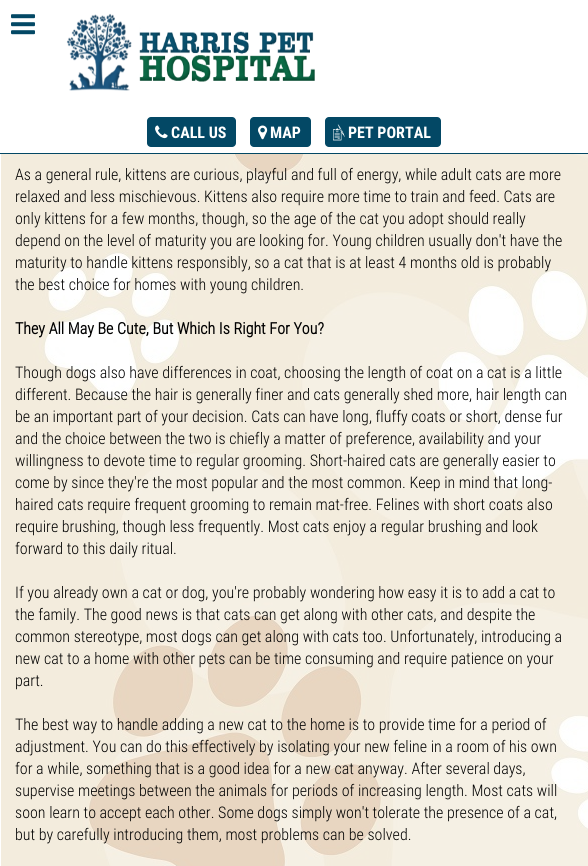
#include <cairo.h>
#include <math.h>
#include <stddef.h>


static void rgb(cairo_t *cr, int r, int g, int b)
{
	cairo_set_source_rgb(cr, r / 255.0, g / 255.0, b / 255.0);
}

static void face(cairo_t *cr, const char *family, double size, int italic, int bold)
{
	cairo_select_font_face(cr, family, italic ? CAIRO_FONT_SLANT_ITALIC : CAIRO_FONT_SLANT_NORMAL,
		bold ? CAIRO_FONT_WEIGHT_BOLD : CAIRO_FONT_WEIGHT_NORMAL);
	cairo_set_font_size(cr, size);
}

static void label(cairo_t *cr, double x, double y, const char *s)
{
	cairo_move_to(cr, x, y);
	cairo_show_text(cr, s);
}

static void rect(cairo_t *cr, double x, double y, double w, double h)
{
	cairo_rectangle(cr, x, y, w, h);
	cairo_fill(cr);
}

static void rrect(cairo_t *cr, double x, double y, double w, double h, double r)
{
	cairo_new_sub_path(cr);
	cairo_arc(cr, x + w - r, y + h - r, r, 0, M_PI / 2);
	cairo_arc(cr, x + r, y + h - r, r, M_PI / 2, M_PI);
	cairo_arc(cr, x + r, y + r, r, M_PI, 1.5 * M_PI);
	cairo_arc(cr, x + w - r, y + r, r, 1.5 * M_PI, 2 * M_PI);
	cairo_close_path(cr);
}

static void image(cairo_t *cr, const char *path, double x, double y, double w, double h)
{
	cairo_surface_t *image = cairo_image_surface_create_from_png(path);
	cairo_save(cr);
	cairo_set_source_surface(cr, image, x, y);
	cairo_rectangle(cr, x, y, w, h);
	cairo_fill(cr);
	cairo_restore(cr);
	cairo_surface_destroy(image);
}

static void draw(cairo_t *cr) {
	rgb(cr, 255, 255, 255);
	cairo_paint(cr);
	image(cr, "image0.png", 1, 154, 587, 712);
	rgb(cr, 3, 72, 101);
	rect(cr, 0, 153, 588, 1);
	image(cr, "image1.png", 11, 14, 24, 21);
	image(cr, "image2.png", 66, 13, 249, 78);
	rrect(cr, 147, 117, 89, 30, 4);
	cairo_fill(cr);
	image(cr, "image3.png", 155, 125, 13, 14);
	face(cr, "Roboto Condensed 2", 16, 0, 1);
	rgb(cr, 255, 255, 255);
	label(cr, 171, 138, "CALL US");
	rgb(cr, 3, 72, 101);
	rrect(cr, 250, 117, 61, 30, 4);
	cairo_fill(cr);
	image(cr, "image4.png", 258, 125, 10, 15);
	rgb(cr, 255, 255, 255);
	label(cr, 270, 138, "MAP");
	rgb(cr, 3, 72, 101);
	rrect(cr, 325, 117, 116, 30, 4);
	cairo_fill(cr);
	image(cr, "image5.png", 333, 124, 12, 17);
	rgb(cr, 255, 255, 255);
	label(cr, 348, 138, "PET PORTAL");
	face(cr, "Roboto Condensed Light", 16, 0, 0);
	rgb(cr, 0, 0, 0);
	label(cr, 15, 180, "As a general rule, kittens are curious, playful and full of energy, while adult cats are more");
	label(cr, 15, 202, "relaxed and less mischievous. Kittens also require more time to train and feed. Cats are");
	label(cr, 15, 224, "only kittens for a few months, though, so the age of the cat you adopt should really");
	label(cr, 15, 246, "depend on the level of maturity you are looking for. Young children usually don't have the");
	label(cr, 15, 268, "maturity to handle kittens responsibly, so a cat that is at least 4 months old is probably");
	label(cr, 15, 290, "the best choice for homes with young children.");
	face(cr, "Roboto Condensed", 16, 0, 1);
	label(cr, 15, 334, "They All May Be Cute, But Which Is Right For You?");
	face(cr, "Roboto Condensed Light", 16, 0, 0);
	label(cr, 15, 378, "Though dogs also have differences in coat, choosing the length of coat on a cat is a little");
	label(cr, 15, 400, "different. Because the hair is generally finer and cats generally shed more, hair length can");
	label(cr, 15, 422, "be an important part of your decision. Cats can have long, fluffy coats or short, dense fur");
	label(cr, 15, 444, "and the choice between the two is chiefly a matter of preference, availability and your");
	label(cr, 15, 466, "willingness to devote time to regular grooming. Short-haired cats are generally easier to");
	label(cr, 15, 488, "come by since they're the most popular and the most common. Keep in mind that long-");
	label(cr, 15, 510, "haired cats require frequent grooming to remain mat-free. Felines with short coats also");
	label(cr, 15, 532, "require brushing, though less frequently. Most cats enjoy a regular brushing and look");
	label(cr, 15, 554, "forward to this daily ritual.");
	label(cr, 15, 598, "If you already own a cat or dog, you're probably wondering how easy it is to add a cat to");
	label(cr, 15, 620, "the family. The good news is that cats can get along with other cats, and despite the");
	label(cr, 15, 642, "common stereotype, most dogs can get along with cats too. Unfortunately, introducing a");
	label(cr, 15, 664, "new cat to a home with other pets can be time consuming and require patience on your");
	label(cr, 15, 686, "part.");
	label(cr, 15, 730, "The best way to handle adding a new cat to the home is to provide time for a period of");
	label(cr, 15, 752, "adjustment. You can do this effectively by isolating your new feline in a room of his own");
	label(cr, 15, 774, "for a while, something that is a good idea for a new cat anyway. After several days,");
	label(cr, 15, 796, "supervise meetings between the animals for periods of increasing length. Most cats will");
	label(cr, 15, 818, "soon learn to accept each other. Some dogs simply won't tolerate the presence of a cat,");
	label(cr, 15, 840, "but by carefully introducing them, most problems can be solved.");
}

int main(void) {
	cairo_surface_t *surface = cairo_image_surface_create(CAIRO_FORMAT_RGB24, 588, 866);
	cairo_t *cr = cairo_create(surface);
	cairo_font_options_t *options = cairo_font_options_create();
	cairo_font_options_set_hint_metrics(options, CAIRO_HINT_METRICS_OFF);
	cairo_font_options_set_hint_style(options, CAIRO_HINT_STYLE_NONE);
	cairo_set_font_options(cr, options);
	cairo_set_miter_limit(cr, 4);
	draw(cr);
	cairo_surface_write_to_png(surface, "render.png");
	cairo_font_options_destroy(options);
	cairo_destroy(cr);
	cairo_surface_destroy(surface);
	return 0;
}
